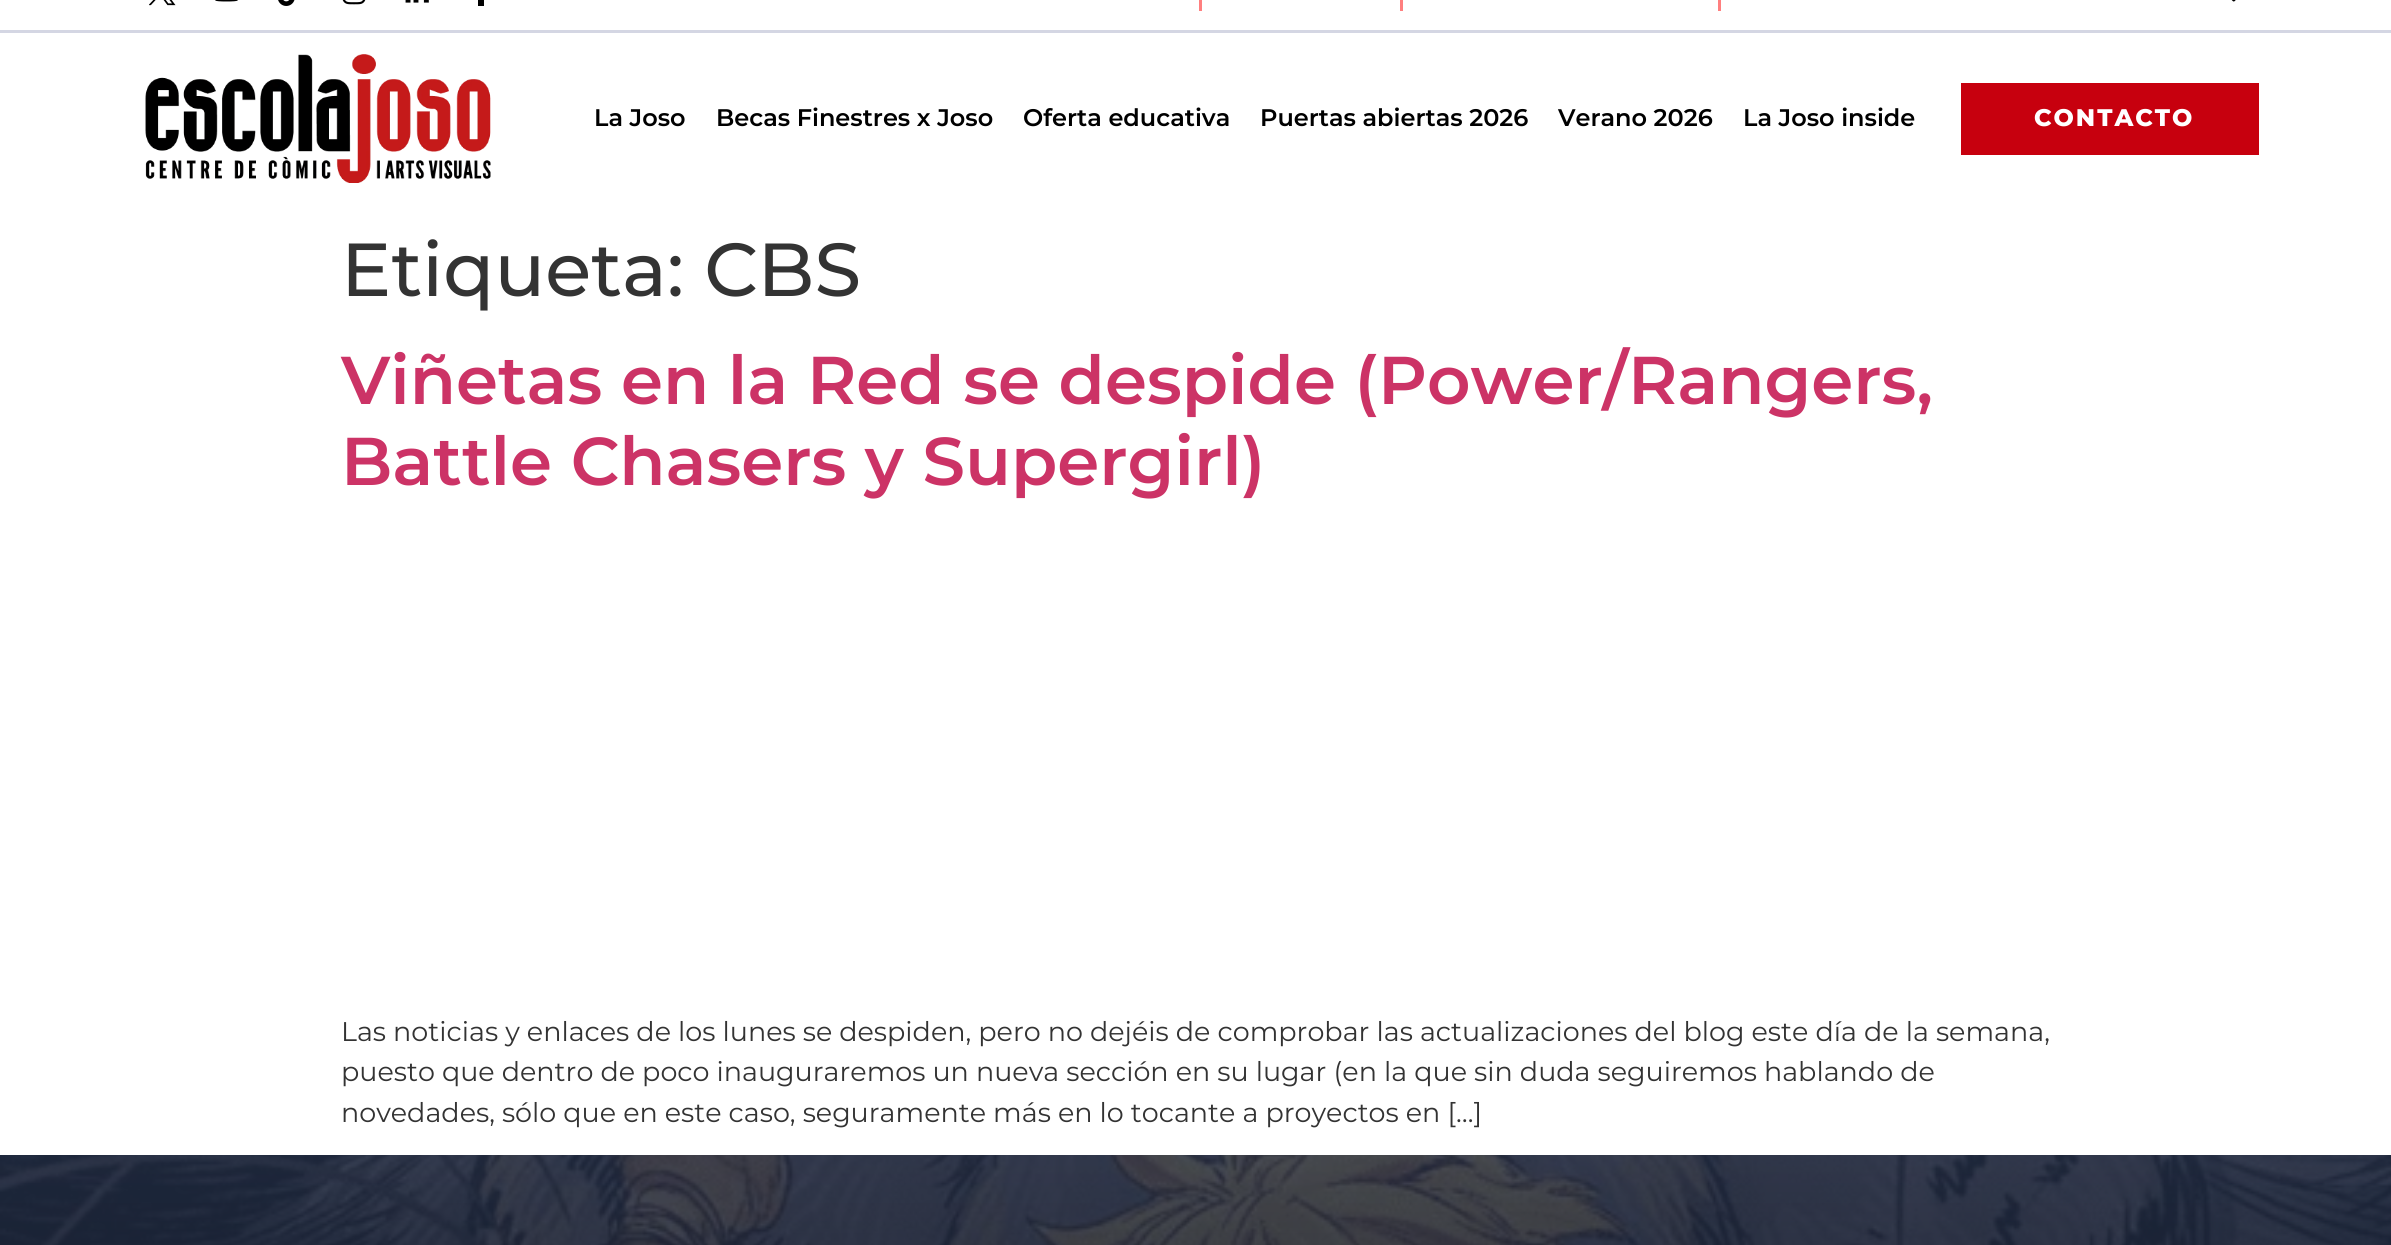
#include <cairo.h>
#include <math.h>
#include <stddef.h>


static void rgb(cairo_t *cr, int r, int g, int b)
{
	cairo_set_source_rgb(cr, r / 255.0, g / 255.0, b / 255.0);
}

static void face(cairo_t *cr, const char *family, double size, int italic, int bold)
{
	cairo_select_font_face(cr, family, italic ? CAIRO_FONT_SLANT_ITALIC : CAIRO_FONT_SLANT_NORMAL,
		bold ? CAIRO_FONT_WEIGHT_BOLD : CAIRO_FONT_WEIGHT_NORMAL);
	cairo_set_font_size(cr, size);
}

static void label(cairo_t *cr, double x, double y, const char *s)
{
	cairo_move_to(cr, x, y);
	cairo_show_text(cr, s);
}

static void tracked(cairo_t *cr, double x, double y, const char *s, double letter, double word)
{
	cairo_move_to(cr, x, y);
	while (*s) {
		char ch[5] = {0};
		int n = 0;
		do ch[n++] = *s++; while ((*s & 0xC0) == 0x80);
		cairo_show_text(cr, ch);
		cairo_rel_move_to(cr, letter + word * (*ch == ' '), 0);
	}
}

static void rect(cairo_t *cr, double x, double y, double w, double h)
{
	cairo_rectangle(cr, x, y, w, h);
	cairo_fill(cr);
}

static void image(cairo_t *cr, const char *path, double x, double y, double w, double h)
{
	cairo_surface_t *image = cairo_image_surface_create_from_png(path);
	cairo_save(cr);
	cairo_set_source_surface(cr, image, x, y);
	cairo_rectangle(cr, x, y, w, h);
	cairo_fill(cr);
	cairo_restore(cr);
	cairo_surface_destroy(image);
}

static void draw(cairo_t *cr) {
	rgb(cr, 255, 255, 255);
	cairo_paint(cr);
	rgb(cr, 212, 214, 227);
	rect(cr, 0, 30, 2391, 3);
	image(cr, "image0.png", 149, 0, 27, 6);
	image(cr, "image1.png", 215, 0, 23, 2);
	image(cr, "image2.png", 278, 0, 17, 6);
	image(cr, "image3.png", 342, 0, 24, 5);
	image(cr, "image4.png", 405, 0, 24, 3);
	rgb(cr, 0, 0, 0);
	rect(cr, 478, 0, 6, 6);
	rgb(cr, 255, 127, 127);
	rect(cr, 1199, 0, 3, 11);
	rect(cr, 1400, 0, 3, 11);
	rect(cr, 1718, 0, 3, 11);
	image(cr, "image5.png", 2231, 0, 5, 2);
	image(cr, "image6.png", 145, 54, 346, 129);
	face(cr, "Montserrat SemiBold", 24, 0, 0);
	rgb(cr, 0, 0, 0);
	label(cr, 594, 126, "La Joso");
	label(cr, 716, 126, "Becas Finestres x Joso");
	label(cr, 1023, 126, "Oferta educativa");
	label(cr, 1260, 126, "Puertas abiertas 2026");
	label(cr, 1558, 126, "Verano 2026");
	label(cr, 1743, 126, "La Joso inside");
	rgb(cr, 199, 0, 14);
	rect(cr, 1961, 83, 298, 72);
	face(cr, "Montserrat ExtraBold", 24, 0, 0);
	rgb(cr, 255, 255, 255);
	tracked(cr, 2034, 126, "CONTACTO", 2, 0);
	face(cr, "Montserrat Medium", 75, 0, 0);
	rgb(cr, 51, 51, 51);
	label(cr, 341, 296, "Etiqueta: CBS");
	face(cr, "Montserrat SemiBold", 67.5, 0, 0);
	rgb(cr, 204, 51, 102);
	label(cr, 341, 404, "Viñetas en la Red se despide (Power/Rangers,");
	label(cr, 341, 485, "Battle Chasers y Supergirl)");
	face(cr, "Montserrat", 27, 0, 0);
	rgb(cr, 51, 51, 51);
	label(cr, 341, 1041, "Las noticias y enlaces de los lunes se despiden, pero no dejéis de comprobar las actualizaciones del blog este día de la semana,");
	label(cr, 341, 1081, "puesto que dentro de poco inauguraremos un nueva sección en su lugar (en la que sin duda seguiremos hablando de");
	label(cr, 341, 1122, "novedades, sólo que en este caso, seguramente más en lo tocante a proyectos en […]");
	image(cr, "image7.png", 0, 1155, 2391, 90);
}

int main(void) {
	cairo_surface_t *surface = cairo_image_surface_create(CAIRO_FORMAT_RGB24, 2391, 1245);
	cairo_t *cr = cairo_create(surface);
	cairo_font_options_t *options = cairo_font_options_create();
	cairo_font_options_set_hint_metrics(options, CAIRO_HINT_METRICS_OFF);
	cairo_font_options_set_hint_style(options, CAIRO_HINT_STYLE_NONE);
	cairo_set_font_options(cr, options);
	cairo_set_miter_limit(cr, 4);
	draw(cr);
	cairo_surface_write_to_png(surface, "render.png");
	cairo_font_options_destroy(options);
	cairo_destroy(cr);
	cairo_surface_destroy(surface);
	return 0;
}
